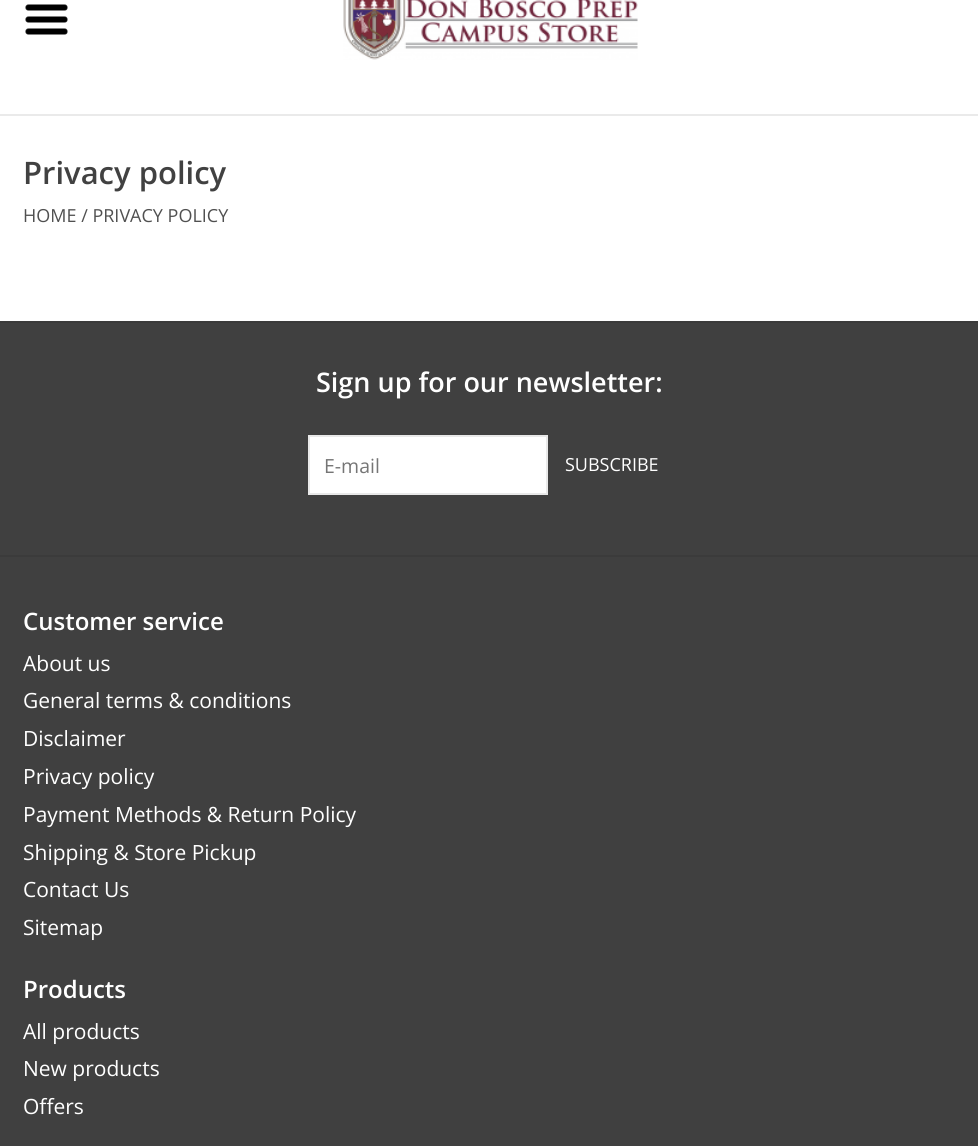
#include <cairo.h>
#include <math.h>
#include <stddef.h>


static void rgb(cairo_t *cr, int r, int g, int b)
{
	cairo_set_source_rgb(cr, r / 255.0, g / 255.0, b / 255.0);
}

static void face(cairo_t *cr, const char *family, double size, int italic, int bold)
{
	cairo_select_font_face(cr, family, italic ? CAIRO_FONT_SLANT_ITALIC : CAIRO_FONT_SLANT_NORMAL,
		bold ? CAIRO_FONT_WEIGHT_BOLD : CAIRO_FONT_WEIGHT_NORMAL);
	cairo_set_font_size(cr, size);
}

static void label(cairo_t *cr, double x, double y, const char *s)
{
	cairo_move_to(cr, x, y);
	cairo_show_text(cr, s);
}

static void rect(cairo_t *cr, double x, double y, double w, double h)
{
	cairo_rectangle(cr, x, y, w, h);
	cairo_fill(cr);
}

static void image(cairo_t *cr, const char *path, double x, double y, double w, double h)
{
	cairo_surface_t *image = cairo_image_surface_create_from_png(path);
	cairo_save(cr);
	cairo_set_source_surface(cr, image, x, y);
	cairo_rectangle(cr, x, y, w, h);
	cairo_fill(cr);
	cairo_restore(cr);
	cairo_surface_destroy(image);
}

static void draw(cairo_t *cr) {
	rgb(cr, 255, 255, 255);
	cairo_paint(cr);
	rgb(cr, 234, 234, 234);
	rect(cr, 0, 114, 978, 2);
	image(cr, "image0.png", 343, 0, 295, 60);
	image(cr, "image1.png", 25, 4, 43, 31);
	face(cr, "Open Sans SemiBold", 31, 0, 0);
	rgb(cr, 65, 65, 65);
	label(cr, 23, 184, "Privacy policy");
	face(cr, "Open Sans", 18, 0, 0);
	rgb(cr, 80, 80, 80);
	label(cr, 23, 222, "HOME / PRIVACY POLICY");
	rgb(cr, 64, 64, 64);
	rect(cr, 0, 323, 978, 823);
	rgb(cr, 59, 59, 59);
	rect(cr, 0, 321, 978, 2);
	face(cr, "Open Sans SemiBold", 27, 0, 0);
	rgb(cr, 255, 255, 255);
	label(cr, 316, 392, "Sign up for our newsletter:");
	cairo_rectangle(cr, 309, 436, 238, 58);
	cairo_fill_preserve(cr);
	rgb(cr, 233, 233, 233);
	cairo_stroke(cr);
	face(cr, "Open Sans", 19.5, 0, 0);
	rgb(cr, 117, 117, 117);
	label(cr, 324, 473, "E-mail");
	face(cr, "Open Sans", 18, 0, 0);
	rgb(cr, 255, 255, 255);
	label(cr, 565, 471, "SUBSCRIBE");
	rgb(cr, 59, 59, 59);
	rect(cr, 0, 555, 978, 2);
	face(cr, "Open Sans SemiBold", 24, 0, 0);
	rgb(cr, 255, 255, 255);
	label(cr, 23, 630, "Customer service");
	face(cr, "Open Sans", 21, 0, 0);
	label(cr, 23, 671, "About us");
	label(cr, 23, 708, "General terms & conditions");
	label(cr, 23, 746, "Disclaimer");
	label(cr, 23, 784, "Privacy policy");
	label(cr, 23, 822, "Payment Methods & Return Policy");
	label(cr, 23, 860, "Shipping & Store Pickup");
	label(cr, 23, 897, "Contact Us");
	label(cr, 23, 935, "Sitemap");
	face(cr, "Open Sans SemiBold", 24, 0, 0);
	label(cr, 23, 998, "Products");
	face(cr, "Open Sans", 21, 0, 0);
	label(cr, 23, 1039, "All products");
	label(cr, 23, 1076, "New products");
	label(cr, 23, 1114, "Offers");
}

int main(void) {
	cairo_surface_t *surface = cairo_image_surface_create(CAIRO_FORMAT_RGB24, 978, 1146);
	cairo_t *cr = cairo_create(surface);
	cairo_font_options_t *options = cairo_font_options_create();
	cairo_font_options_set_hint_metrics(options, CAIRO_HINT_METRICS_OFF);
	cairo_font_options_set_hint_style(options, CAIRO_HINT_STYLE_NONE);
	cairo_set_font_options(cr, options);
	cairo_set_miter_limit(cr, 4);
	draw(cr);
	cairo_surface_write_to_png(surface, "render.png");
	cairo_font_options_destroy(options);
	cairo_destroy(cr);
	cairo_surface_destroy(surface);
	return 0;
}
